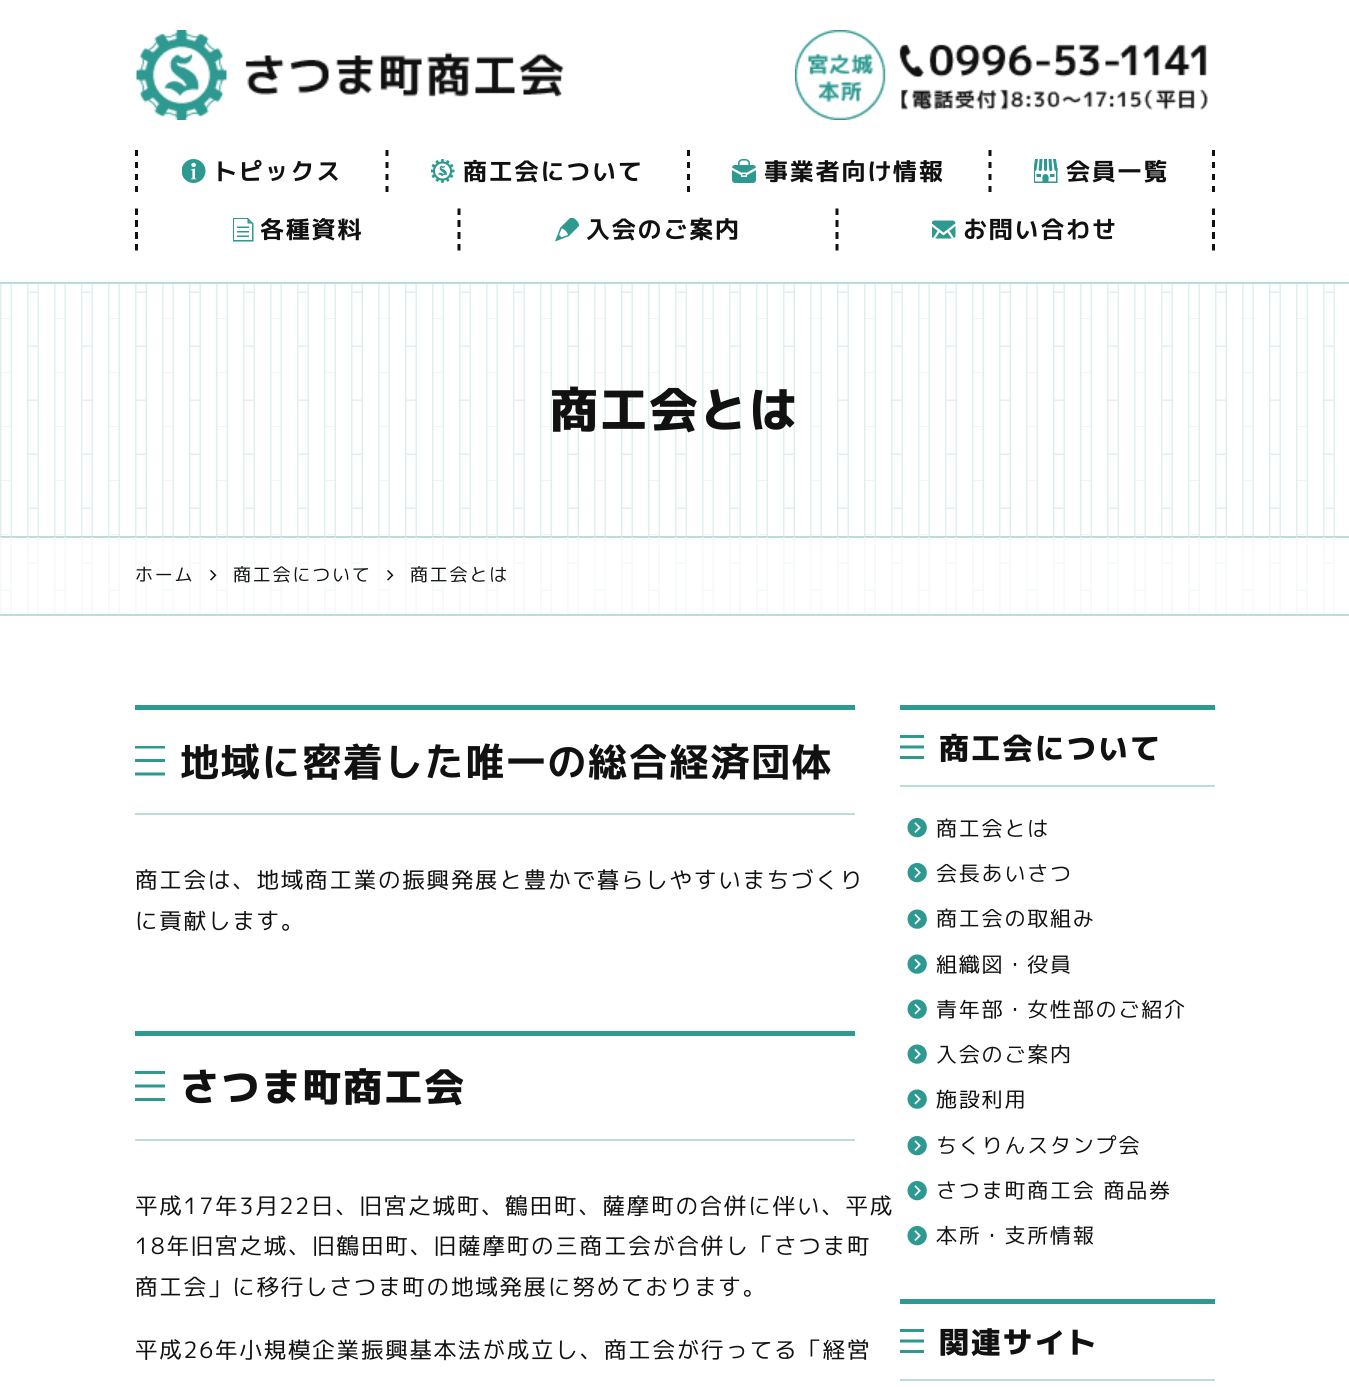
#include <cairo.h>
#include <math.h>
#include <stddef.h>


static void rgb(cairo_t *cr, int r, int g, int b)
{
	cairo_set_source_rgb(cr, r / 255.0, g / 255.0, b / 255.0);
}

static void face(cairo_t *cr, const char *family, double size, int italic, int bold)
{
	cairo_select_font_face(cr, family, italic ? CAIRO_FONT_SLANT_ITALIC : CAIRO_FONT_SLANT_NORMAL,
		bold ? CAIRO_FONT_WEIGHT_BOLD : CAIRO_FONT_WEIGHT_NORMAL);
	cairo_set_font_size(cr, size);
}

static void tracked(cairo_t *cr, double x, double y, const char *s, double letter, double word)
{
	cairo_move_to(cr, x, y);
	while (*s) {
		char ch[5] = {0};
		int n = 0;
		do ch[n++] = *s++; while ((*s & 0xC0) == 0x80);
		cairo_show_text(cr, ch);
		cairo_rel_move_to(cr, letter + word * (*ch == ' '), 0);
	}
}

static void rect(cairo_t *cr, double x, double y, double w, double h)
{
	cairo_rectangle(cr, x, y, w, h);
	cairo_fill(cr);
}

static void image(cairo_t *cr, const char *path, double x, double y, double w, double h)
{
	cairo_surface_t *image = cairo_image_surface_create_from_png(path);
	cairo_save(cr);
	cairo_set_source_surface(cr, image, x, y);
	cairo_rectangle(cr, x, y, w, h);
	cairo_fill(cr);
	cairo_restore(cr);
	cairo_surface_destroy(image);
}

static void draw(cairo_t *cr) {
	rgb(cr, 255, 255, 255);
	cairo_paint(cr);
	image(cr, "image0.png", 136, 30, 428, 90);
	image(cr, "image1.png", 795, 30, 413, 90);
	image(cr, "image2.png", 135, 150, 3, 42);
	image(cr, "image3.png", 182, 159, 24, 24);
	face(cr, "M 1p", 24, 0, 1);
	rgb(cr, 17, 17, 17);
	tracked(cr, 213, 180, "トピックス", 1.8, 0);
	image(cr, "image4.png", 385, 150, 4, 42);
	image(cr, "image5.png", 431, 159, 24, 24);
	tracked(cr, 463, 180, "商工会について", 1.8, 0);
	image(cr, "image2.png", 687, 150, 3, 42);
	image(cr, "image6.png", 732, 159, 24, 24);
	tracked(cr, 764, 180, "事業者向け情報", 1.8, 0);
	image(cr, "image4.png", 988, 150, 4, 42);
	image(cr, "image7.png", 1034, 159, 24, 24);
	tracked(cr, 1066, 180, "会員一覧", 1.8, 0);
	image(cr, "image2.png", 1212, 150, 3, 42);
	image(cr, "image8.png", 135, 208, 3, 43);
	image(cr, "image9.png", 233, 218, 21, 24);
	tracked(cr, 260, 238, "各種資料", 1.8, 0);
	image(cr, "image10.png", 457, 208, 4, 43);
	image(cr, "image11.png", 555, 218, 24, 24);
	tracked(cr, 586, 238, "入会のご案内", 1.8, 0);
	image(cr, "image10.png", 835, 208, 4, 43);
	image(cr, "image12.png", 932, 220, 24, 19);
	tracked(cr, 963, 238, "お問い合わせ", 1.8, 0);
	image(cr, "image8.png", 1212, 208, 3, 43);
	image(cr, "image13.png", 0, 284, 1335, 252);
	rgb(cr, 186, 221, 218);
	rect(cr, 0, 282, 1349, 2);
	rect(cr, 0, 536, 1349, 2);
	face(cr, "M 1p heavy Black", 48, 0, 0);
	rgb(cr, 17, 17, 17);
	tracked(cr, 550, 427, "商工会とは", 1.8, 0);
	image(cr, "image14.png", 0, 537, 1335, 77);
	rgb(cr, 186, 221, 218);
	rect(cr, 0, 614, 1349, 2);
	face(cr, "M 1p", 18, 0, 0);
	rgb(cr, 17, 17, 17);
	tracked(cr, 135, 581, "ホーム", 1.8, 0);
	image(cr, "image15.png", 210, 570, 7, 11);
	tracked(cr, 233, 581, "商工会について", 1.8, 0);
	image(cr, "image16.png", 387, 570, 7, 11);
	tracked(cr, 410, 581, "商工会とは", 1.8, 0);
	rgb(cr, 46, 153, 144);
	rect(cr, 135, 705, 720, 5);
	rgb(cr, 186, 221, 218);
	rect(cr, 135, 813, 720, 2);
	image(cr, "image17.png", 135, 746, 30, 30);
	face(cr, "M 1p", 39, 0, 1);
	rgb(cr, 17, 17, 17);
	tracked(cr, 180, 776, "地域に密着した唯一の総合経済団体", 1.8, 0);
	face(cr, "M 1p", 22.5, 0, 0);
	tracked(cr, 135, 888, "商工会は、地域商工業の振興発展と豊かで暮らしやすいまちづくり", 1.8, 0);
	tracked(cr, 135, 929, "に貢献します。", 1.8, 0);
	rgb(cr, 46, 153, 144);
	rect(cr, 135, 1031, 720, 5);
	rgb(cr, 186, 221, 218);
	rect(cr, 135, 1139, 720, 2);
	image(cr, "image18.png", 135, 1071, 30, 30);
	face(cr, "M 1p heavy Black", 39, 0, 0);
	rgb(cr, 17, 17, 17);
	tracked(cr, 180, 1101, "さつま町商工会", 1.8, 0);
	face(cr, "M 1p", 22.5, 0, 0);
	tracked(cr, 135, 1214, "平成17年3月22日、旧宮之城町、鶴田町、薩摩町の合併に伴い、平成", 1.8, 0);
	tracked(cr, 135, 1254, "18年旧宮之城、旧鶴田町、旧薩摩町の三商工会が合併し「さつま町", 1.8, 0);
	tracked(cr, 135, 1295, "商工会」に移行しさつま町の地域発展に努めております。", 1.8, 0);
	tracked(cr, 135, 1358, "平成26年小規模企業振興基本法が成立し、商工会が行ってる「経営", 1.8, 0);
	rgb(cr, 46, 153, 144);
	rect(cr, 900, 705, 315, 5);
	rgb(cr, 186, 221, 218);
	rect(cr, 900, 785, 315, 2);
	image(cr, "image19.png", 900, 735, 24, 24);
	face(cr, "M 1p heavy Black", 30, 0, 0);
	rgb(cr, 17, 17, 17);
	tracked(cr, 939, 759, "商工会について", 1.8, 0);
	image(cr, "image20.png", 907, 818, 20, 20);
	face(cr, "M 1p", 21, 0, 0);
	tracked(cr, 936, 836, "商工会とは", 1.8, 0);
	image(cr, "image20.png", 907, 863, 20, 20);
	tracked(cr, 936, 881, "会長あいさつ", 1.8, 0);
	image(cr, "image21.png", 907, 909, 20, 20);
	tracked(cr, 936, 926, "商工会の取組み", 1.8, 0);
	image(cr, "image21.png", 907, 954, 20, 20);
	tracked(cr, 936, 972, "組織図・役員", 1.8, 0);
	image(cr, "image21.png", 907, 999, 20, 20);
	tracked(cr, 936, 1017, "青年部・女性部のご紹介", 1.8, 0);
	image(cr, "image21.png", 907, 1044, 20, 20);
	tracked(cr, 936, 1062, "入会のご案内", 1.8, 0);
	image(cr, "image21.png", 907, 1089, 20, 20);
	tracked(cr, 936, 1107, "施設利用", 1.8, 0);
	image(cr, "image20.png", 907, 1136, 20, 20);
	tracked(cr, 936, 1153, "ちくりんスタンプ会", 1.8, 0);
	image(cr, "image20.png", 907, 1181, 20, 20);
	tracked(cr, 936, 1198, "さつま町商工会 商品券", 1.8, 0);
	image(cr, "image20.png", 907, 1226, 20, 20);
	tracked(cr, 936, 1243, "本所・支所情報", 1.8, 0);
	rgb(cr, 46, 153, 144);
	rect(cr, 900, 1299, 315, 5);
	rgb(cr, 186, 221, 218);
	rect(cr, 900, 1379, 315, 2);
	image(cr, "image19.png", 900, 1329, 24, 24);
	face(cr, "M 1p heavy Black", 30, 0, 0);
	rgb(cr, 17, 17, 17);
	tracked(cr, 939, 1353, "関連サイト", 1.8, 0);
}

int main(void) {
	cairo_surface_t *surface = cairo_image_surface_create(CAIRO_FORMAT_RGB24, 1349, 1387);
	cairo_t *cr = cairo_create(surface);
	cairo_font_options_t *options = cairo_font_options_create();
	cairo_font_options_set_hint_metrics(options, CAIRO_HINT_METRICS_OFF);
	cairo_font_options_set_hint_style(options, CAIRO_HINT_STYLE_NONE);
	cairo_set_font_options(cr, options);
	cairo_set_miter_limit(cr, 4);
	draw(cr);
	cairo_surface_write_to_png(surface, "render.png");
	cairo_font_options_destroy(options);
	cairo_destroy(cr);
	cairo_surface_destroy(surface);
	return 0;
}
